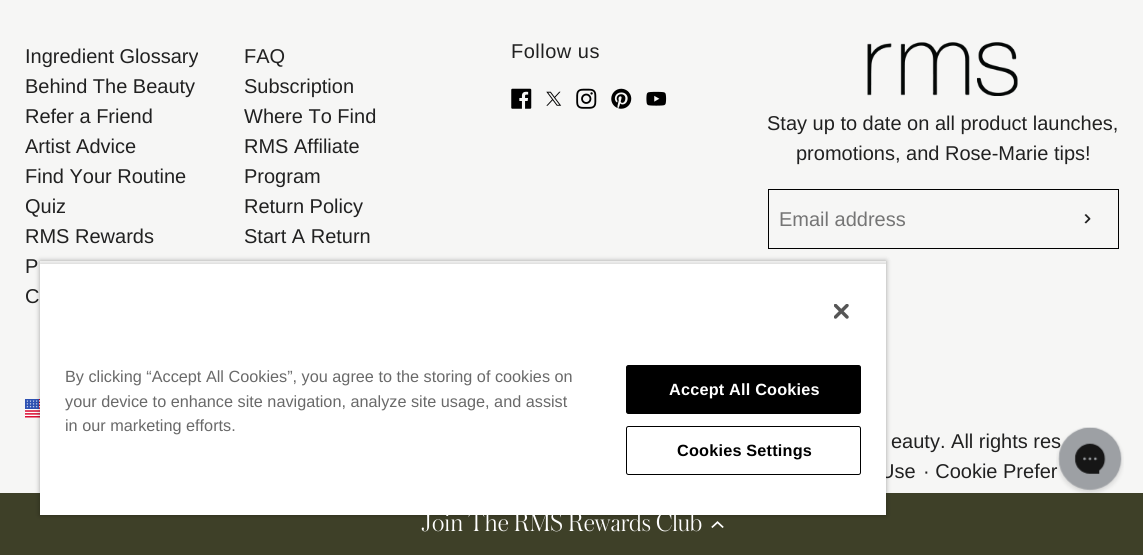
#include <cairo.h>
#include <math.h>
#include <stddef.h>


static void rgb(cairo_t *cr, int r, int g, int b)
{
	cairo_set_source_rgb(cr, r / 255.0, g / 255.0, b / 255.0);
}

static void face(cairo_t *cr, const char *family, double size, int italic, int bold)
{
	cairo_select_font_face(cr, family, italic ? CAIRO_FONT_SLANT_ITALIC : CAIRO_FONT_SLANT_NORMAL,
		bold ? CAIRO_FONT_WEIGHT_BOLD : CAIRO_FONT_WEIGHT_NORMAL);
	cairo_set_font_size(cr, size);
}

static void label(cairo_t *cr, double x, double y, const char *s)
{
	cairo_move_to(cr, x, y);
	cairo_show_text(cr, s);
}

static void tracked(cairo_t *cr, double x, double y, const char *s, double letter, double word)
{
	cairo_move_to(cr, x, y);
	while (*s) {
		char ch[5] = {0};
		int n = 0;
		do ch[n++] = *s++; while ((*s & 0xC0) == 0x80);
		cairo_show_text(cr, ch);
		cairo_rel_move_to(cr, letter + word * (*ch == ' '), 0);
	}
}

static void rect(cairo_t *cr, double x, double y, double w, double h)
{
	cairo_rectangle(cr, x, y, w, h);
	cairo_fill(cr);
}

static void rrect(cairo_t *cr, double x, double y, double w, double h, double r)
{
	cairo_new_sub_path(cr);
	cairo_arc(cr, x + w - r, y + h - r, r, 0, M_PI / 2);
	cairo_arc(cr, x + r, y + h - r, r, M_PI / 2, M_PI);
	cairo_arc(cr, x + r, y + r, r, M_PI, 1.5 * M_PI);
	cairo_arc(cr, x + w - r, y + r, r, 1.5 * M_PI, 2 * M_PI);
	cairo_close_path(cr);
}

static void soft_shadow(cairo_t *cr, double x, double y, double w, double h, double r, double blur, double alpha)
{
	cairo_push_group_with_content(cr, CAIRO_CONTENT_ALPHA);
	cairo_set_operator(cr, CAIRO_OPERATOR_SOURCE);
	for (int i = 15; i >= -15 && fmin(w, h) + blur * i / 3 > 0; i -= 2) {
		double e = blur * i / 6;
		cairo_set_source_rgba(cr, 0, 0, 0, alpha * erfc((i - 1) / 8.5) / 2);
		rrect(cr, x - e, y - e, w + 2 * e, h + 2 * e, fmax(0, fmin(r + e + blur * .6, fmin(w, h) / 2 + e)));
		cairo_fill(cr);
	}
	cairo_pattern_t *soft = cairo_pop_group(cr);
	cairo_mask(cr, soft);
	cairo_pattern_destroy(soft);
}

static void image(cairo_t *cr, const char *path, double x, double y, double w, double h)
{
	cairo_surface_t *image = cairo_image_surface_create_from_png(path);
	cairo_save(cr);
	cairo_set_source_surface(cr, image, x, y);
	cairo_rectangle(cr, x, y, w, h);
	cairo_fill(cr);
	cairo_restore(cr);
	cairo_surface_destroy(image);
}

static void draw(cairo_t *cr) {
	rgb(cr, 246, 246, 245);
	cairo_paint(cr);
	face(cr, "Liberation Sans", 20, 0, 0);
	rgb(cr, 33, 33, 33);
	label(cr, 25, 63, "Ingredient Glossary");
	label(cr, 25, 93, "Behind The Beauty");
	label(cr, 25, 123, "Refer a Friend");
	label(cr, 25, 153, "Artist Advice");
	label(cr, 25, 183, "Find Your Routine");
	label(cr, 25, 213, "Quiz");
	label(cr, 25, 243, "RMS Rewards");
	label(cr, 25, 273, "P");
	label(cr, 25, 303, "C");
	label(cr, 244, 63, "FAQ");
	label(cr, 244, 93, "Subscription");
	label(cr, 244, 123, "Where To Find");
	label(cr, 244, 153, "RMS Affiliate");
	label(cr, 244, 183, "Program");
	label(cr, 244, 213, "Return Policy");
	label(cr, 244, 243, "Start A Return");
	tracked(cr, 511, 58, "Follow us", 0.5, 0);
	image(cr, "image0.png", 511, 88, 21, 21);
	image(cr, "image1.png", 546, 91, 16, 15);
	image(cr, "image2.png", 576, 88, 21, 21);
	image(cr, "image3.png", 611, 88, 21, 21);
	image(cr, "image4.png", 646, 91, 21, 15);
	image(cr, "image5.png", 867, 42, 151, 54);
	label(cr, 767, 130, "Stay up to date on all product launches,");
	label(cr, 796, 160, "promotions, and Rose-Marie tips!");
	cairo_rectangle(cr, 768.5, 189.5, 350, 59);
	rgb(cr, 0, 0, 0);
	cairo_set_line_width(cr, 1);
	cairo_stroke(cr);
	rgb(cr, 117, 117, 117);
	label(cr, 779, 226, "Email address");
	rgb(cr, 33, 33, 33);
	cairo_new_path(cr);
	cairo_move_to(cr, 1084.5, 222.5);
	cairo_line_to(cr, 1089, 218);
	cairo_line_to(cr, 1090.5, 219);
	cairo_line_to(cr, 1086, 223.5);
	cairo_close_path(cr);
	cairo_fill(cr);
	cairo_new_path(cr);
	cairo_move_to(cr, 1086, 214);
	cairo_line_to(cr, 1090.5, 218.5);
	cairo_line_to(cr, 1089, 219.5);
	cairo_line_to(cr, 1084.5, 215);
	cairo_close_path(cr);
	cairo_fill(cr);
	image(cr, "image6.png", 25, 399, 15, 19);
	label(cr, 891, 448, "eauty. All rights res");
	label(cr, 880, 478, "Use");
	label(cr, 923, 478, "· Cookie Prefer");
	rgb(cr, 62, 64, 40);
	rect(cr, 0, 493, 1143, 62);
	image(cr, "image9.png", 711, 521, 13, 7);
	cairo_save(cr);
	cairo_set_fill_rule(cr, CAIRO_FILL_RULE_EVEN_ODD);
	cairo_new_path(cr);
	cairo_move_to(cr, 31, 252);
	cairo_line_to(cr, 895, 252);
	cairo_line_to(cr, 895, 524);
	cairo_line_to(cr, 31, 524);
	cairo_close_path(cr);
	cairo_move_to(cr, 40, 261);
	cairo_line_to(cr, 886, 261);
	cairo_line_to(cr, 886, 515);
	cairo_line_to(cr, 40, 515);
	cairo_close_path(cr);
	cairo_clip(cr);
	rgb(cr, 0, 0, 0);
	soft_shadow(cr, 40, 261, 846, 254, 0, 2.5, 0.35);
	cairo_restore(cr);
	cairo_save(cr);
	cairo_rectangle(cr, 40, 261, 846, 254);
	cairo_clip(cr);
	rgb(cr, 0, 0, 0);
	soft_shadow(cr, 40, 264, 846, 251, 0, 2.5, 0.2);
	cairo_restore(cr);
	rgb(cr, 255, 255, 255);
	rect(cr, 40, 264, 846, 251);
	image(cr, "image7.png", 834, 304, 15, 15);
	face(cr, "Liberation Sans", 16.25, 0, 0);
	rgb(cr, 105, 105, 105);
	label(cr, 65, 382, "By clicking “Accept All Cookies”, you agree to the storing of cookies on");
	label(cr, 65, 407, "your device to enhance site navigation, analyze site usage, and assist");
	label(cr, 65, 431, "in our marketing efforts.");
	rgb(cr, 0, 0, 0);
	rrect(cr, 626.5, 365.5, 234, 48, 2);
	cairo_fill_preserve(cr);
	cairo_stroke(cr);
	face(cr, "Liberation Sans", 16.25, 0, 1);
	rgb(cr, 255, 255, 255);
	tracked(cr, 669, 395, "Accept All Cookies", 0.2, 0);
	rrect(cr, 626.5, 426.5, 234, 48, 2);
	rgb(cr, 0, 0, 0);
	cairo_stroke(cr);
	tracked(cr, 677, 456, "Cookies Settings", 0.2, 0);
	image(cr, "image8.png", 1056, 427, 68, 66);
	face(cr, "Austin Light", 27.5, 0, 0);
	rgb(cr, 255, 255, 255);
	label(cr, 421, 531, "Join The RMS Rewards Club");
}

int main(void) {
	cairo_surface_t *surface = cairo_image_surface_create(CAIRO_FORMAT_RGB24, 1143, 555);
	cairo_t *cr = cairo_create(surface);
	cairo_font_options_t *options = cairo_font_options_create();
	cairo_font_options_set_hint_metrics(options, CAIRO_HINT_METRICS_OFF);
	cairo_font_options_set_hint_style(options, CAIRO_HINT_STYLE_NONE);
	cairo_set_font_options(cr, options);
	cairo_set_miter_limit(cr, 4);
	draw(cr);
	cairo_surface_write_to_png(surface, "render.png");
	cairo_font_options_destroy(options);
	cairo_destroy(cr);
	cairo_surface_destroy(surface);
	return 0;
}
